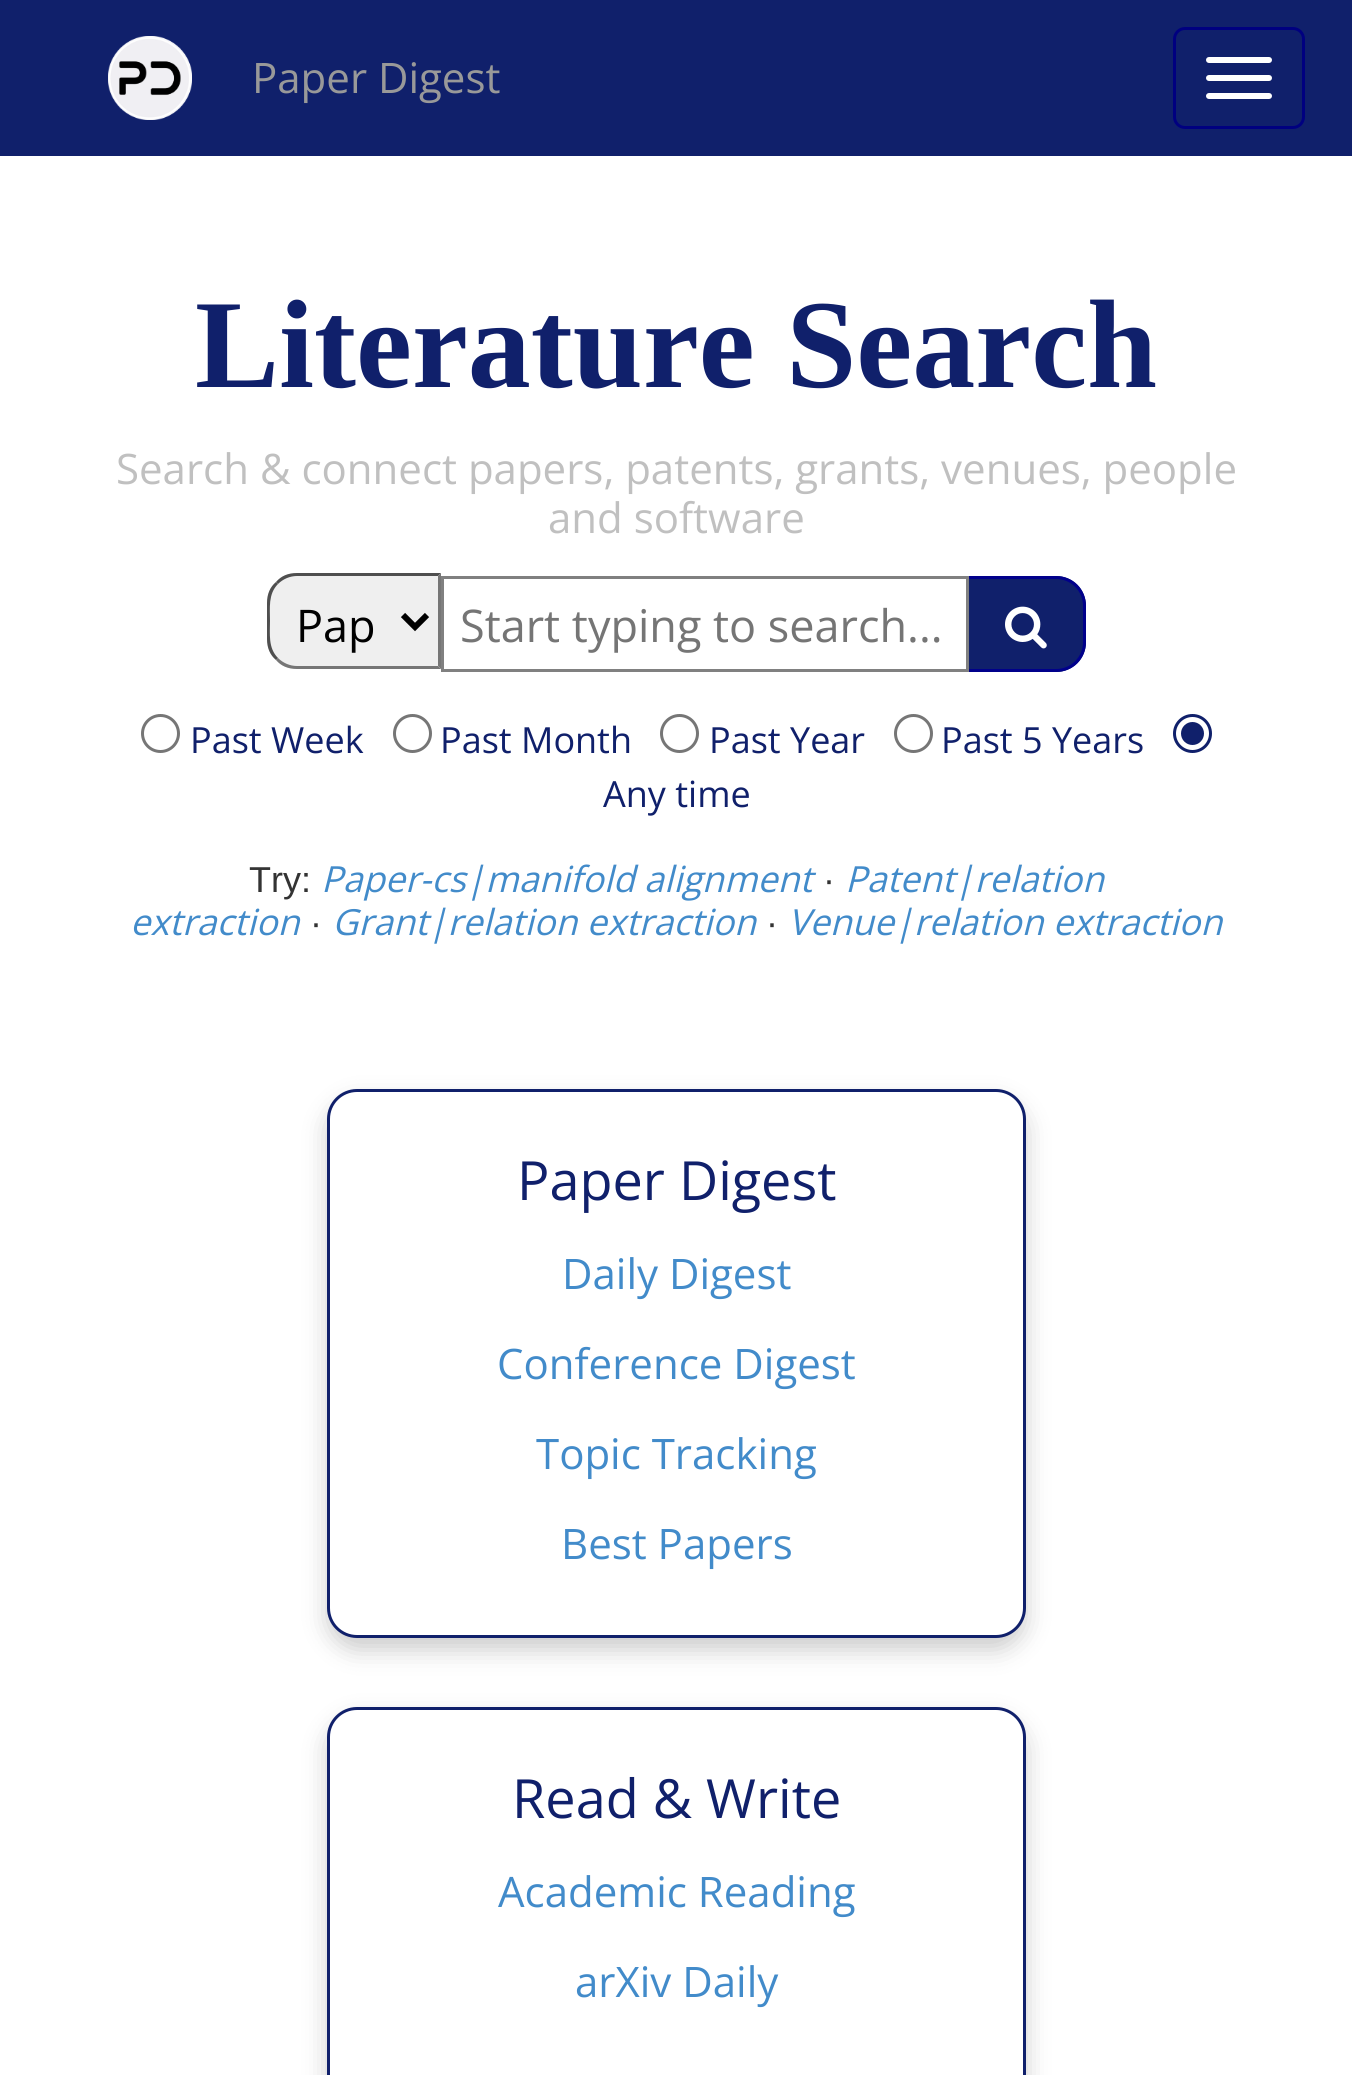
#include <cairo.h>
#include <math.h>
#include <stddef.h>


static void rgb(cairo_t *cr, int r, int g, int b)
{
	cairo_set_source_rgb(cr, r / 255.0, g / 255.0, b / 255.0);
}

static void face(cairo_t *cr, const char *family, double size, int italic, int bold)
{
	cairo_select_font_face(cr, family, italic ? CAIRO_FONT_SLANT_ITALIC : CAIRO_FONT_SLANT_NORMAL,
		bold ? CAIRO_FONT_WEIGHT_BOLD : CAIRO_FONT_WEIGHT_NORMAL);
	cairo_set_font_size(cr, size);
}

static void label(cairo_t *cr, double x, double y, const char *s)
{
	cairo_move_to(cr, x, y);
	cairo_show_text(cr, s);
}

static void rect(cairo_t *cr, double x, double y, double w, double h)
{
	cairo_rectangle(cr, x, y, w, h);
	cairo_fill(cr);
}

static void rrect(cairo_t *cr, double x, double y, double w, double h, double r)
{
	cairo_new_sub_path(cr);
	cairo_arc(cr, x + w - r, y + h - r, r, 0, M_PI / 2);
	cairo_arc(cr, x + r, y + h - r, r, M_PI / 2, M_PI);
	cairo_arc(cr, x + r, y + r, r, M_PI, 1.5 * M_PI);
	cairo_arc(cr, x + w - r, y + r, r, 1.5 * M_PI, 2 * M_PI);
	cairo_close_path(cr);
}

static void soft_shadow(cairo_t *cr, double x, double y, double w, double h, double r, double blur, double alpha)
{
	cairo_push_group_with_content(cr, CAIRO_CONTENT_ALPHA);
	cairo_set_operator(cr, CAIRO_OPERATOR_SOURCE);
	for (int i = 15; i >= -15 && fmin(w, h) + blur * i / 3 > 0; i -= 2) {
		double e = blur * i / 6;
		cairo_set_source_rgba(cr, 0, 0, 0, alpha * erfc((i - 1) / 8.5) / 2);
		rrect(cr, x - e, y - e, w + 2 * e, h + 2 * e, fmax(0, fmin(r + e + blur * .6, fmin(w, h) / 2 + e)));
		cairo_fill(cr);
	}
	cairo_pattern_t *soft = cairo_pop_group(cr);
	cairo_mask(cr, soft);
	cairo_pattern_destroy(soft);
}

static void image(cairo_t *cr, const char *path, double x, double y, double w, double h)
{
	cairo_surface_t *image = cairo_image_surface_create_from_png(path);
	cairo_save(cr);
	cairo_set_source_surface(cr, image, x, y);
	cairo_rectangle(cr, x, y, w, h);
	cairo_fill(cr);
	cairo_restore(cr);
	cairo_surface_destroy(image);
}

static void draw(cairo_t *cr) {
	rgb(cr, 255, 255, 255);
	cairo_paint(cr);
	rgb(cr, 16, 32, 107);
	rect(cr, 0, 0, 1352, 156);
	image(cr, "image0.png", 108, 36, 84, 84);
	face(cr, "Open Sans", 42, 0, 0);
	rgb(cr, 153, 153, 153);
	label(cr, 252, 93, "Paper Digest");
	rrect(cr, 1174.5, 28.5, 129, 99, 10.5);
	rgb(cr, 0, 0, 128);
	cairo_set_line_width(cr, 3);
	cairo_stroke(cr);
	rgb(cr, 255, 255, 255);
	rrect(cr, 1206, 57, 66, 6, 3);
	cairo_fill(cr);
	rrect(cr, 1206, 75, 66, 6, 3);
	cairo_fill(cr);
	rrect(cr, 1206, 93, 66, 6, 3);
	cairo_fill(cr);
	face(cr, "Liberation Serif", 126, 0, 1);
	rgb(cr, 16, 32, 107);
	label(cr, 195, 387, "Literature Search");
	face(cr, "Open Sans", 42, 0, 0);
	rgb(cr, 192, 192, 192);
	label(cr, 116, 484, "Search & connect papers, patents, grants, venues, people");
	label(cr, 548, 533, "and software");
	rgb(cr, 239, 239, 239);
	cairo_new_path(cr);
	cairo_move_to(cr, 297, 573);
	cairo_line_to(cr, 441, 573);
	cairo_line_to(cr, 441, 669);
	cairo_line_to(cr, 297, 669);
	cairo_curve_to(cr, 280.5, 669, 267, 655.5, 267, 639);
	cairo_line_to(cr, 267, 603);
	cairo_curve_to(cr, 267, 586.5, 280.5, 573, 297, 573);
	cairo_close_path(cr);
	cairo_fill(cr);
	rgb(cr, 79, 79, 79);
	cairo_new_path(cr);
	cairo_move_to(cr, 297, 573);
	cairo_curve_to(cr, 288, 573, 281, 576, 276, 582);
	cairo_line_to(cr, 278, 584);
	cairo_curve_to(cr, 283, 579, 290, 576, 297, 576);
	cairo_line_to(cr, 438, 576);
	cairo_line_to(cr, 441, 573);
	cairo_close_path(cr);
	cairo_fill(cr);
	rgb(cr, 118, 118, 118);
	cairo_new_path(cr);
	cairo_move_to(cr, 441, 573);
	cairo_line_to(cr, 438, 576);
	cairo_line_to(cr, 438, 666);
	cairo_line_to(cr, 441, 669);
	cairo_close_path(cr);
	cairo_fill(cr);
	cairo_new_path(cr);
	cairo_move_to(cr, 441, 669);
	cairo_line_to(cr, 438, 666);
	cairo_line_to(cr, 297, 666);
	cairo_curve_to(cr, 290, 666, 283, 663, 278, 658);
	cairo_line_to(cr, 276, 660);
	cairo_curve_to(cr, 281, 666, 288, 669, 297, 669);
	cairo_close_path(cr);
	cairo_fill(cr);
	rgb(cr, 79, 79, 79);
	cairo_new_path(cr);
	cairo_move_to(cr, 267, 603);
	cairo_line_to(cr, 267, 639);
	cairo_curve_to(cr, 267, 648, 270, 655, 276, 660);
	cairo_line_to(cr, 278, 658);
	cairo_curve_to(cr, 268, 648, 270, 634, 270, 621);
	cairo_curve_to(cr, 270, 608, 268, 594, 278, 584);
	cairo_line_to(cr, 276, 582);
	cairo_curve_to(cr, 270, 587, 267, 594, 267, 603);
	cairo_close_path(cr);
	cairo_fill(cr);
	cairo_new_path(cr);
	cairo_move_to(cr, 403, 615);
	cairo_line_to(cr, 415, 627);
	cairo_line_to(cr, 427, 615);
	rgb(cr, 0, 0, 0);
	cairo_set_line_width(cr, 6);
	cairo_stroke(cr);
	face(cr, "Open Sans", 45, 0, 0);
	label(cr, 296, 642, "Pap");
	cairo_rectangle(cr, 442.5, 577.5, 525, 93);
	rgb(cr, 128, 128, 128);
	cairo_set_line_width(cr, 3);
	cairo_stroke(cr);
	rgb(cr, 117, 117, 117);
	label(cr, 460, 642, "Start typing to search...");
	rgb(cr, 16, 32, 107);
	cairo_new_path(cr);
	cairo_move_to(cr, 969, 576);
	cairo_line_to(cr, 1056, 576);
	cairo_curve_to(cr, 1072.5, 576, 1086, 589.5, 1086, 606);
	cairo_line_to(cr, 1086, 642);
	cairo_curve_to(cr, 1086, 658.5, 1072.5, 672, 1056, 672);
	cairo_line_to(cr, 969, 672);
	cairo_close_path(cr);
	cairo_fill(cr);
	rgb(cr, 0, 0, 139);
	cairo_set_fill_rule(cr, CAIRO_FILL_RULE_EVEN_ODD);
	cairo_new_path(cr);
	cairo_move_to(cr, 969, 576);
	cairo_line_to(cr, 1056, 576);
	cairo_curve_to(cr, 1073, 576, 1086, 589, 1086, 606);
	cairo_line_to(cr, 1086, 642);
	cairo_curve_to(cr, 1086, 659, 1073, 672, 1056, 672);
	cairo_line_to(cr, 969, 672);
	cairo_close_path(cr);
	cairo_move_to(cr, 969, 579);
	cairo_line_to(cr, 1056, 579);
	cairo_curve_to(cr, 1071, 579, 1083, 591, 1083, 606);
	cairo_line_to(cr, 1083, 642);
	cairo_curve_to(cr, 1083, 657, 1071, 669, 1056, 669);
	cairo_line_to(cr, 969, 669);
	cairo_close_path(cr);
	cairo_fill(cr);
	image(cr, "image1.png", 1005, 606, 42, 43);
	cairo_arc(cr, 160.5, 733.5, 18, 0, 2 * M_PI);
	rgb(cr, 118, 118, 118);
	cairo_stroke(cr);
	face(cr, "Open Sans", 36, 0, 0);
	rgb(cr, 16, 32, 107);
	label(cr, 190, 753, "Past Week");
	cairo_new_path(cr);
	cairo_arc(cr, 412.5, 733.5, 18, 0, 2 * M_PI);
	rgb(cr, 118, 118, 118);
	cairo_stroke(cr);
	rgb(cr, 16, 32, 107);
	label(cr, 440, 753, "Past Month");
	cairo_new_path(cr);
	cairo_arc(cr, 679.5, 733.5, 18, 0, 2 * M_PI);
	rgb(cr, 118, 118, 118);
	cairo_stroke(cr);
	rgb(cr, 16, 32, 107);
	label(cr, 709, 753, "Past Year");
	cairo_new_path(cr);
	cairo_arc(cr, 913.5, 733.5, 18, 0, 2 * M_PI);
	rgb(cr, 118, 118, 118);
	cairo_stroke(cr);
	rgb(cr, 16, 32, 107);
	label(cr, 941, 753, "Past 5 Years");
	cairo_new_path(cr);
	cairo_arc(cr, 1192.5, 733.5, 18, 0, 2 * M_PI);
	cairo_stroke(cr);
	cairo_arc(cr, 1192.5, 733.5, 11.5, 0, 2 * M_PI);
	cairo_fill(cr);
	label(cr, 603, 807, "Any time");
	face(cr, "Liberation Sans", 36, 0, 0);
	rgb(cr, 51, 51, 51);
	label(cr, 249, 892, "Try:");
	face(cr, "Open Sans", 36, 1, 0);
	rgb(cr, 66, 139, 202);
	label(cr, 321, 892, "Paper-cs|manifold alignment");
	face(cr, "Liberation Sans", 36, 0, 0);
	rgb(cr, 51, 51, 51);
	label(cr, 823, 892, "·");
	face(cr, "Open Sans", 36, 1, 0);
	rgb(cr, 66, 139, 202);
	label(cr, 845, 892, "Patent|relation");
	label(cr, 130, 935, "extraction");
	face(cr, "Liberation Sans", 36, 0, 0);
	rgb(cr, 51, 51, 51);
	label(cr, 310, 935, "·");
	face(cr, "Open Sans", 36, 1, 0);
	rgb(cr, 66, 139, 202);
	label(cr, 332, 935, "Grant|relation extraction");
	face(cr, "Liberation Sans", 36, 0, 0);
	rgb(cr, 51, 51, 51);
	label(cr, 766, 935, "·");
	face(cr, "Open Sans", 36, 1, 0);
	rgb(cr, 66, 139, 202);
	label(cr, 788, 935, "Venue|relation extraction");
	rgb(cr, 0, 0, 0);
	soft_shadow(cr, 327, 1101, 699, 549, 30, 12, 0.2);
	rgb(cr, 255, 255, 255);
	rrect(cr, 328.5, 1090.5, 696, 546, 28.5);
	cairo_fill_preserve(cr);
	rgb(cr, 16, 32, 107);
	cairo_stroke(cr);
	face(cr, "Open Sans", 54, 0, 0);
	label(cr, 517, 1200, "Paper Digest");
	face(cr, "Open Sans", 42, 0, 0);
	rgb(cr, 66, 139, 202);
	label(cr, 562, 1289, "Daily Digest");
	label(cr, 497, 1379, "Conference Digest");
	label(cr, 536, 1469, "Topic Tracking");
	label(cr, 561, 1559, "Best Papers");
	rgb(cr, 0, 0, 0);
	soft_shadow(cr, 327, 1719, 699, 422, 30, 12, 0.2);
	rgb(cr, 255, 255, 255);
	rrect(cr, 328.5, 1708.5, 696, 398, 28.5);
	cairo_fill_preserve(cr);
	rgb(cr, 16, 32, 107);
	cairo_stroke(cr);
	face(cr, "Open Sans", 54, 0, 0);
	label(cr, 512, 1818, "Read & Write");
	face(cr, "Open Sans", 42, 0, 0);
	rgb(cr, 66, 139, 202);
	label(cr, 498, 1907, "Academic Reading");
	label(cr, 575, 1997, "arXiv Daily");
}

int main(void) {
	cairo_surface_t *surface = cairo_image_surface_create(CAIRO_FORMAT_RGB24, 1352, 2075);
	cairo_t *cr = cairo_create(surface);
	cairo_font_options_t *options = cairo_font_options_create();
	cairo_font_options_set_hint_metrics(options, CAIRO_HINT_METRICS_OFF);
	cairo_font_options_set_hint_style(options, CAIRO_HINT_STYLE_NONE);
	cairo_set_font_options(cr, options);
	cairo_set_miter_limit(cr, 4);
	draw(cr);
	cairo_surface_write_to_png(surface, "render.png");
	cairo_font_options_destroy(options);
	cairo_destroy(cr);
	cairo_surface_destroy(surface);
	return 0;
}
